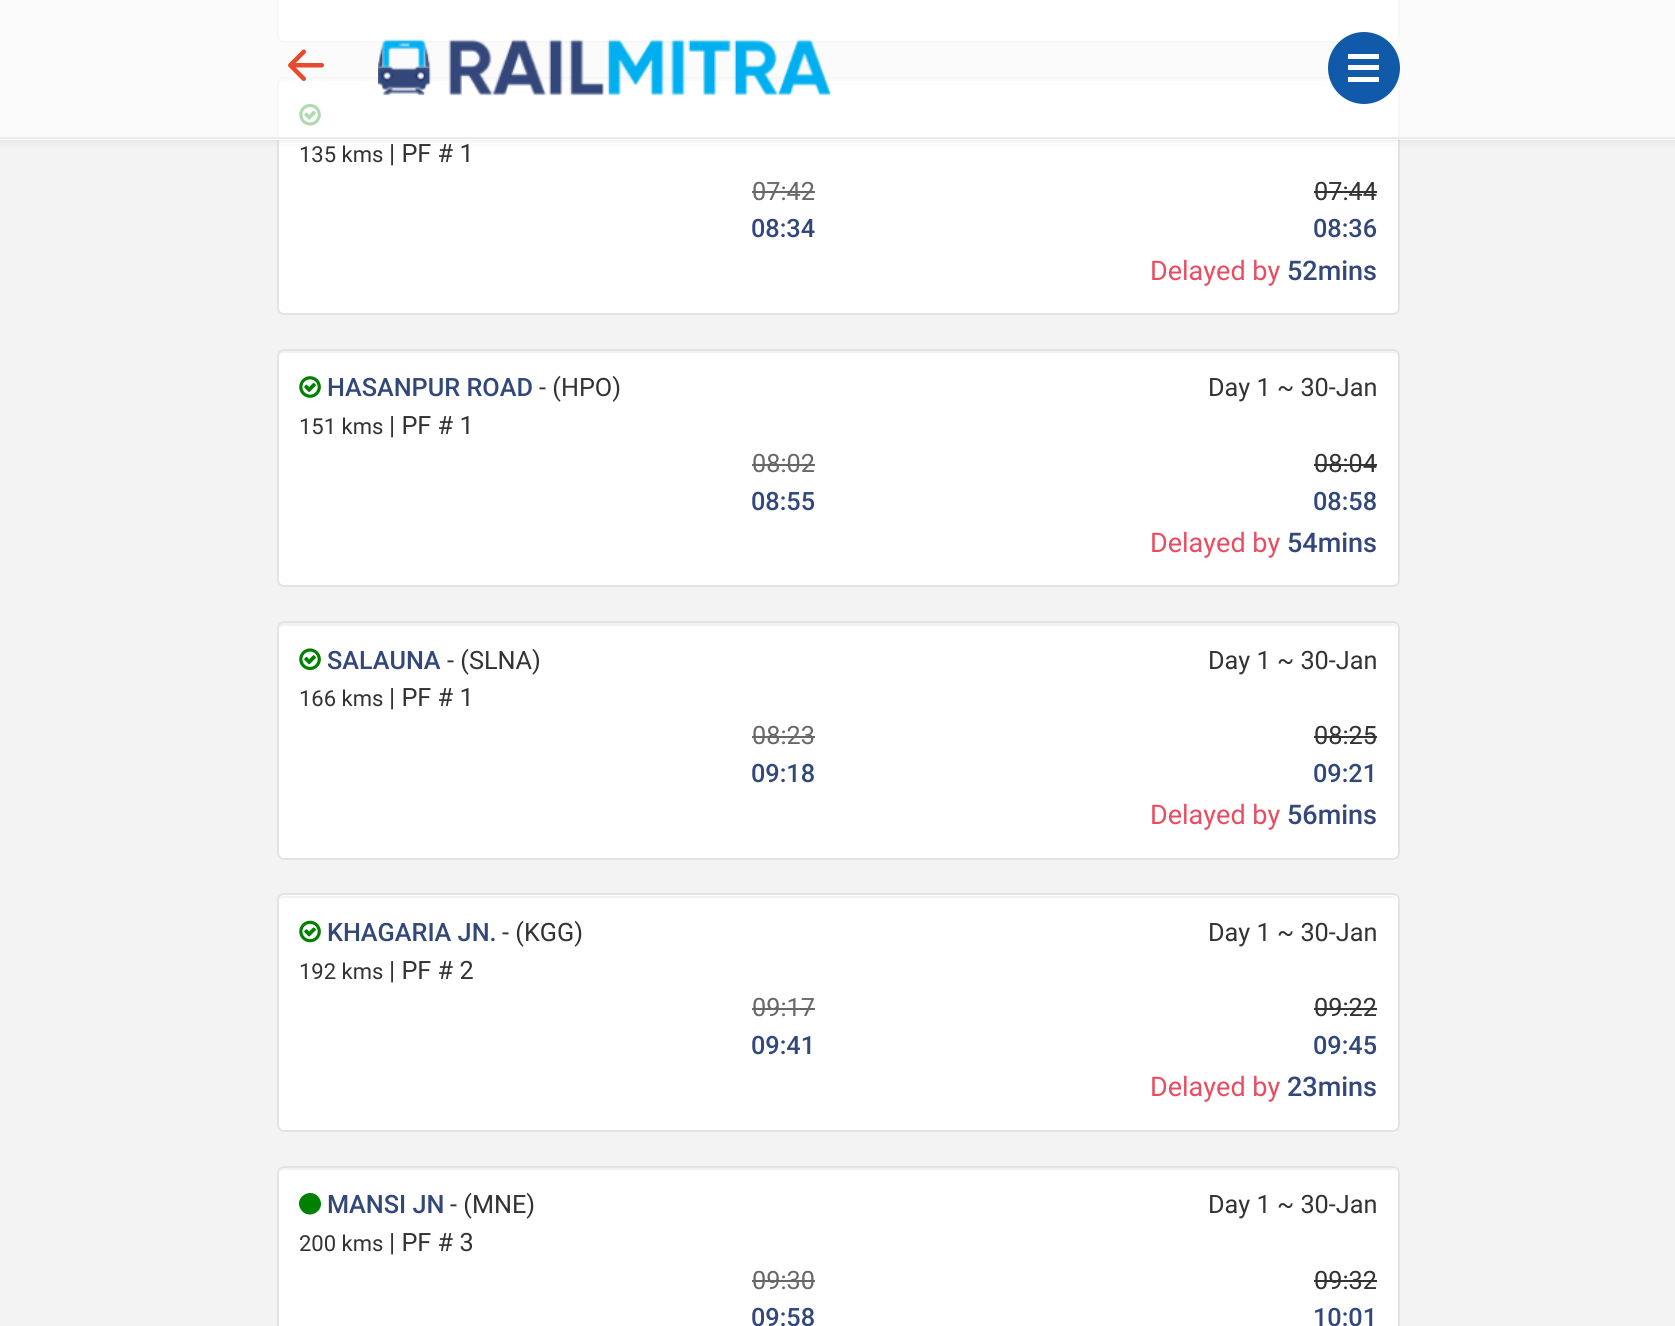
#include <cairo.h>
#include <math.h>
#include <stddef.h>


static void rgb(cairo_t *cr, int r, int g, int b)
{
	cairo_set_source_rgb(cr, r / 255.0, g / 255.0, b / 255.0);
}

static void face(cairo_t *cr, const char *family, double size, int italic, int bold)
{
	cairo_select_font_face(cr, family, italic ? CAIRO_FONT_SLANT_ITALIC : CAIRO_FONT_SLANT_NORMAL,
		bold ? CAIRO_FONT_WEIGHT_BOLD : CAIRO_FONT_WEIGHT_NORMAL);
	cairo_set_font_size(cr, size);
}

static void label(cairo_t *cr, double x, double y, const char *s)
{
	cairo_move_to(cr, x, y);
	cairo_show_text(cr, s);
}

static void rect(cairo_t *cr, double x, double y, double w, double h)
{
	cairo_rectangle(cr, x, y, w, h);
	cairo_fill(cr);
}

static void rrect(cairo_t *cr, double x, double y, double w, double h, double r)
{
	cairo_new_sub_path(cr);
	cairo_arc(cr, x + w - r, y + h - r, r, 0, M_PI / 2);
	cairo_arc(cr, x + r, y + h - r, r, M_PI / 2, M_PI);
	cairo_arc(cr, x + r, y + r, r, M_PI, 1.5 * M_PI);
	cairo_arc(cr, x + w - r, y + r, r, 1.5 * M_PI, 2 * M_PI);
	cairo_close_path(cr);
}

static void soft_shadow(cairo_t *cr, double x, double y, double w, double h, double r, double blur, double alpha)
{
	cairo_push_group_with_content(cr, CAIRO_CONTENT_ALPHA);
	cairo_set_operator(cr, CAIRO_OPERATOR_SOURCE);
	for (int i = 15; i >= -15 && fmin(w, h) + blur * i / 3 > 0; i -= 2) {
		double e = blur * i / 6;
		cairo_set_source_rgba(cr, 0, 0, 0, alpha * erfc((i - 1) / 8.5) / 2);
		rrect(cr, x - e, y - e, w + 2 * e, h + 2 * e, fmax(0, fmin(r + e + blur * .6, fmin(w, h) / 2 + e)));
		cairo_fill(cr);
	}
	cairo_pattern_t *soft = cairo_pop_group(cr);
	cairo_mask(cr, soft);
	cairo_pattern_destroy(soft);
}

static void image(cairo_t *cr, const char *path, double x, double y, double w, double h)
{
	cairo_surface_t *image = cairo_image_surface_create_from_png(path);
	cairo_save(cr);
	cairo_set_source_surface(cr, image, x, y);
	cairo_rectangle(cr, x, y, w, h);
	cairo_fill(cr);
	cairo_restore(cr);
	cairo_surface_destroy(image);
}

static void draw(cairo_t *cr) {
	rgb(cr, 243, 243, 243);
	cairo_paint(cr);
	rgb(cr, 255, 255, 255);
	rrect(cr, 278, -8, 1121, 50, 6);
	cairo_fill_preserve(cr);
	rgb(cr, 227, 227, 227);
	cairo_stroke(cr);
	rgb(cr, 255, 255, 255);
	rrect(cr, 277, 77, 1123, 238, 7);
	cairo_fill(cr);
	rgb(cr, 242, 242, 242);
	cairo_new_path(cr);
	cairo_move_to(cr, 284, 81);
	cairo_line_to(cr, 1393, 81);
	cairo_curve_to(cr, 1395, 81, 1397, 83, 1397, 86);
	cairo_line_to(cr, 1397, 84);
	cairo_curve_to(cr, 1397, 81, 1395, 79, 1392, 79);
	cairo_line_to(cr, 284, 79);
	cairo_curve_to(cr, 281, 79, 279, 81, 279, 84);
	cairo_line_to(cr, 279, 86);
	cairo_curve_to(cr, 279, 83, 281, 81, 284, 81);
	cairo_close_path(cr);
	cairo_fill(cr);
	rrect(cr, 278, 78, 1121, 236, 6);
	rgb(cr, 227, 227, 227);
	cairo_stroke(cr);
	image(cr, "image2.png", 299, 103, 22, 23);
	cairo_save(cr);
	cairo_set_fill_rule(cr, CAIRO_FILL_RULE_EVEN_ODD);
	cairo_new_path(cr);
	cairo_move_to(cr, 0, 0);
	cairo_line_to(cr, 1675, 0);
	cairo_line_to(cr, 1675, 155);
	cairo_line_to(cr, 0, 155);
	cairo_close_path(cr);
	cairo_move_to(cr, 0, 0);
	cairo_line_to(cr, 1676, 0);
	cairo_line_to(cr, 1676, 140);
	cairo_line_to(cr, 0, 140);
	cairo_close_path(cr);
	cairo_clip(cr);
	rgb(cr, 0, 0, 0);
	soft_shadow(cr, 0, 0, 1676, 140, 0, 4.5, 0.1);
	cairo_restore(cr);
	cairo_set_source_rgba(cr, 1, 1, 1, 0.7);
	rect(cr, 0, 0, 1675, 140);
	rgb(cr, 235, 235, 235);
	rect(cr, 0, 137, 1675, 2);
	image(cr, "image0.png", 288, 49, 36, 32);
	image(cr, "image1.png", 378, 39, 453, 57);
	rgb(cr, 17, 89, 169);
	cairo_arc(cr, 1364, 68, 36, 0, 2 * M_PI);
	cairo_fill(cr);
	rgb(cr, 255, 255, 255);
	rect(cr, 1348, 54, 31, 5);
	rect(cr, 1348, 65, 31, 5);
	rect(cr, 1348, 77, 31, 5);
	face(cr, "Roboto", 22, 0, 0);
	rgb(cr, 51, 51, 51);
	label(cr, 299, 162, "135 kms");
	face(cr, "Roboto", 25.25, 0, 0);
	label(cr, 389, 162, "| PF # 1");
	rgb(cr, 104, 104, 104);
	label(cr, 752, 200, "07:42");
	rect(cr, 752, 191, 63, 2);
	face(cr, "Roboto Medium", 25.25, 0, 0);
	rgb(cr, 50, 71, 122);
	label(cr, 751, 237, "08:34");
	face(cr, "Roboto", 25.25, 0, 0);
	rgb(cr, 51, 51, 51);
	label(cr, 1314, 200, "07:44");
	rect(cr, 1314, 191, 63, 2);
	face(cr, "Roboto Medium", 25.25, 0, 0);
	rgb(cr, 50, 71, 122);
	label(cr, 1313, 237, "08:36");
	face(cr, "Roboto", 27, 0, 0);
	rgb(cr, 234, 76, 98);
	label(cr, 1150, 280, "Delayed by");
	face(cr, "Roboto Medium", 27, 0, 0);
	rgb(cr, 50, 71, 122);
	label(cr, 1287, 280, "52mins");
	rgb(cr, 255, 255, 255);
	rrect(cr, 277, 349, 1123, 238, 7);
	cairo_fill(cr);
	rgb(cr, 242, 242, 242);
	cairo_new_path(cr);
	cairo_move_to(cr, 284, 353);
	cairo_line_to(cr, 1393, 353);
	cairo_curve_to(cr, 1395, 353, 1397, 355, 1397, 358);
	cairo_line_to(cr, 1397, 356);
	cairo_curve_to(cr, 1397, 353, 1395, 351, 1392, 351);
	cairo_line_to(cr, 284, 351);
	cairo_curve_to(cr, 281, 351, 279, 353, 279, 356);
	cairo_line_to(cr, 279, 358);
	cairo_curve_to(cr, 279, 355, 281, 353, 284, 353);
	cairo_close_path(cr);
	cairo_fill(cr);
	rrect(cr, 278, 350, 1121, 236, 6);
	rgb(cr, 227, 227, 227);
	cairo_stroke(cr);
	image(cr, "image3.png", 299, 376, 22, 22);
	face(cr, "Roboto Medium", 25.25, 0, 0);
	rgb(cr, 50, 71, 122);
	label(cr, 327, 396, "HASANPUR ROAD");
	face(cr, "Roboto", 25.25, 0, 0);
	rgb(cr, 51, 51, 51);
	label(cr, 539, 396, "- (HPO)");
	face(cr, "Roboto", 22, 0, 0);
	label(cr, 299, 434, "151 kms");
	face(cr, "Roboto", 25.25, 0, 0);
	label(cr, 389, 434, "| PF # 1");
	label(cr, 1208, 396, "Day 1 ~ 30-Jan");
	rgb(cr, 104, 104, 104);
	label(cr, 752, 472, "08:02");
	rect(cr, 752, 464, 63, 2);
	face(cr, "Roboto Medium", 25.25, 0, 0);
	rgb(cr, 50, 71, 122);
	label(cr, 751, 510, "08:55");
	face(cr, "Roboto", 25.25, 0, 0);
	rgb(cr, 51, 51, 51);
	label(cr, 1314, 472, "08:04");
	rect(cr, 1314, 464, 63, 2);
	face(cr, "Roboto Medium", 25.25, 0, 0);
	rgb(cr, 50, 71, 122);
	label(cr, 1313, 510, "08:58");
	face(cr, "Roboto", 27, 0, 0);
	rgb(cr, 234, 76, 98);
	label(cr, 1150, 552, "Delayed by");
	face(cr, "Roboto Medium", 27, 0, 0);
	rgb(cr, 50, 71, 122);
	label(cr, 1287, 552, "54mins");
	rgb(cr, 255, 255, 255);
	rrect(cr, 277, 621, 1123, 239, 7);
	cairo_fill(cr);
	rgb(cr, 242, 242, 242);
	cairo_new_path(cr);
	cairo_move_to(cr, 284, 626);
	cairo_line_to(cr, 1393, 626);
	cairo_curve_to(cr, 1395, 626, 1397, 628, 1397, 630);
	cairo_line_to(cr, 1397, 628);
	cairo_curve_to(cr, 1397, 625, 1395, 623, 1392, 623);
	cairo_line_to(cr, 284, 623);
	cairo_curve_to(cr, 281, 623, 279, 625, 279, 628);
	cairo_line_to(cr, 279, 630);
	cairo_curve_to(cr, 279, 628, 281, 626, 284, 626);
	cairo_close_path(cr);
	cairo_fill(cr);
	rrect(cr, 278, 622, 1121, 237, 6);
	rgb(cr, 227, 227, 227);
	cairo_stroke(cr);
	image(cr, "image4.png", 299, 648, 22, 22);
	face(cr, "Roboto Medium", 25.25, 0, 0);
	rgb(cr, 50, 71, 122);
	label(cr, 327, 669, "SALAUNA");
	face(cr, "Roboto", 25.25, 0, 0);
	rgb(cr, 51, 51, 51);
	label(cr, 447, 669, "- (SLNA)");
	face(cr, "Roboto", 22, 0, 0);
	label(cr, 299, 706, "166 kms");
	face(cr, "Roboto", 25.25, 0, 0);
	label(cr, 389, 706, "| PF # 1");
	label(cr, 1208, 669, "Day 1 ~ 30-Jan");
	rgb(cr, 104, 104, 104);
	label(cr, 752, 744, "08:23");
	rect(cr, 752, 736, 63, 2);
	face(cr, "Roboto Medium", 25.25, 0, 0);
	rgb(cr, 50, 71, 122);
	label(cr, 751, 782, "09:18");
	face(cr, "Roboto", 25.25, 0, 0);
	rgb(cr, 51, 51, 51);
	label(cr, 1314, 744, "08:25");
	rect(cr, 1314, 736, 63, 2);
	face(cr, "Roboto Medium", 25.25, 0, 0);
	rgb(cr, 50, 71, 122);
	label(cr, 1313, 782, "09:21");
	face(cr, "Roboto", 27, 0, 0);
	rgb(cr, 234, 76, 98);
	label(cr, 1150, 824, "Delayed by");
	face(cr, "Roboto Medium", 27, 0, 0);
	rgb(cr, 50, 71, 122);
	label(cr, 1287, 824, "56mins");
	rgb(cr, 255, 255, 255);
	rrect(cr, 277, 893, 1123, 239, 7);
	cairo_fill(cr);
	rgb(cr, 242, 242, 242);
	cairo_new_path(cr);
	cairo_move_to(cr, 284, 898);
	cairo_line_to(cr, 1393, 898);
	cairo_curve_to(cr, 1395, 898, 1397, 900, 1397, 902);
	cairo_curve_to(cr, 1397, 899, 1395, 896, 1392, 896);
	cairo_line_to(cr, 284, 896);
	cairo_curve_to(cr, 281, 896, 279, 899, 279, 902);
	cairo_curve_to(cr, 279, 900, 281, 898, 284, 898);
	cairo_close_path(cr);
	cairo_fill(cr);
	rrect(cr, 278, 894, 1121, 237, 6);
	rgb(cr, 227, 227, 227);
	cairo_stroke(cr);
	image(cr, "image5.png", 299, 920, 22, 23);
	face(cr, "Roboto Medium", 25.25, 0, 0);
	rgb(cr, 50, 71, 122);
	label(cr, 327, 941, "KHAGARIA JN.");
	face(cr, "Roboto", 25.25, 0, 0);
	rgb(cr, 51, 51, 51);
	label(cr, 502, 941, "- (KGG)");
	face(cr, "Roboto", 22, 0, 0);
	label(cr, 299, 979, "192 kms");
	face(cr, "Roboto", 25.25, 0, 0);
	label(cr, 389, 979, "| PF # 2");
	label(cr, 1208, 941, "Day 1 ~ 30-Jan");
	rgb(cr, 104, 104, 104);
	label(cr, 752, 1016, "09:17");
	rect(cr, 752, 1008, 63, 2);
	face(cr, "Roboto Medium", 25.25, 0, 0);
	rgb(cr, 50, 71, 122);
	label(cr, 751, 1054, "09:41");
	face(cr, "Roboto", 25.25, 0, 0);
	rgb(cr, 51, 51, 51);
	label(cr, 1314, 1016, "09:22");
	rect(cr, 1314, 1008, 63, 2);
	face(cr, "Roboto Medium", 25.25, 0, 0);
	rgb(cr, 50, 71, 122);
	label(cr, 1313, 1054, "09:45");
	face(cr, "Roboto", 27, 0, 0);
	rgb(cr, 234, 76, 98);
	label(cr, 1150, 1096, "Delayed by");
	face(cr, "Roboto Medium", 27, 0, 0);
	rgb(cr, 50, 71, 122);
	label(cr, 1287, 1096, "23mins");
	rgb(cr, 255, 255, 255);
	rrect(cr, 277, 1166, 1123, 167, 7);
	cairo_fill(cr);
	rgb(cr, 242, 242, 242);
	cairo_new_path(cr);
	cairo_move_to(cr, 284, 1170);
	cairo_line_to(cr, 1393, 1170);
	cairo_curve_to(cr, 1395, 1170, 1397, 1172, 1397, 1174);
	cairo_curve_to(cr, 1397, 1171, 1395, 1168, 1392, 1168);
	cairo_line_to(cr, 284, 1168);
	cairo_curve_to(cr, 281, 1168, 279, 1171, 279, 1174);
	cairo_curve_to(cr, 279, 1172, 281, 1170, 284, 1170);
	cairo_close_path(cr);
	cairo_fill(cr);
	rrect(cr, 278, 1167, 1121, 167, 6);
	rgb(cr, 227, 227, 227);
	cairo_stroke(cr);
	rgb(cr, 0, 128, 0);
	cairo_new_path(cr);
	cairo_move_to(cr, 319.5, 1198.5);
	cairo_curve_to(cr, 326.5, 1210.5, 308, 1221.5, 300.5, 1209);
	cairo_curve_to(cr, 293.5, 1197, 312, 1186, 319.5, 1198.5);
	cairo_close_path(cr);
	cairo_fill(cr);
	face(cr, "Roboto Medium", 25.25, 0, 0);
	rgb(cr, 50, 71, 122);
	label(cr, 327, 1213, "MANSI JN");
	face(cr, "Roboto", 25.25, 0, 0);
	rgb(cr, 51, 51, 51);
	label(cr, 450, 1213, "- (MNE)");
	face(cr, "Roboto", 22, 0, 0);
	label(cr, 299, 1251, "200 kms");
	face(cr, "Roboto", 25.25, 0, 0);
	label(cr, 389, 1251, "| PF # 3");
	label(cr, 1208, 1213, "Day 1 ~ 30-Jan");
	rgb(cr, 104, 104, 104);
	label(cr, 752, 1289, "09:30");
	rect(cr, 752, 1280, 63, 2);
	face(cr, "Roboto Medium", 25.25, 0, 0);
	rgb(cr, 50, 71, 122);
	label(cr, 751, 1326, "09:58");
	face(cr, "Roboto", 25.25, 0, 0);
	rgb(cr, 51, 51, 51);
	label(cr, 1314, 1289, "09:32");
	rect(cr, 1314, 1280, 63, 2);
	face(cr, "Roboto Medium", 25.25, 0, 0);
	rgb(cr, 50, 71, 122);
	label(cr, 1313, 1326, "10:01");
}

int main(void) {
	cairo_surface_t *surface = cairo_image_surface_create(CAIRO_FORMAT_RGB24, 1675, 1326);
	cairo_t *cr = cairo_create(surface);
	cairo_font_options_t *options = cairo_font_options_create();
	cairo_font_options_set_hint_metrics(options, CAIRO_HINT_METRICS_OFF);
	cairo_font_options_set_hint_style(options, CAIRO_HINT_STYLE_NONE);
	cairo_set_font_options(cr, options);
	cairo_set_miter_limit(cr, 4);
	draw(cr);
	cairo_surface_write_to_png(surface, "render.png");
	cairo_font_options_destroy(options);
	cairo_destroy(cr);
	cairo_surface_destroy(surface);
	return 0;
}
